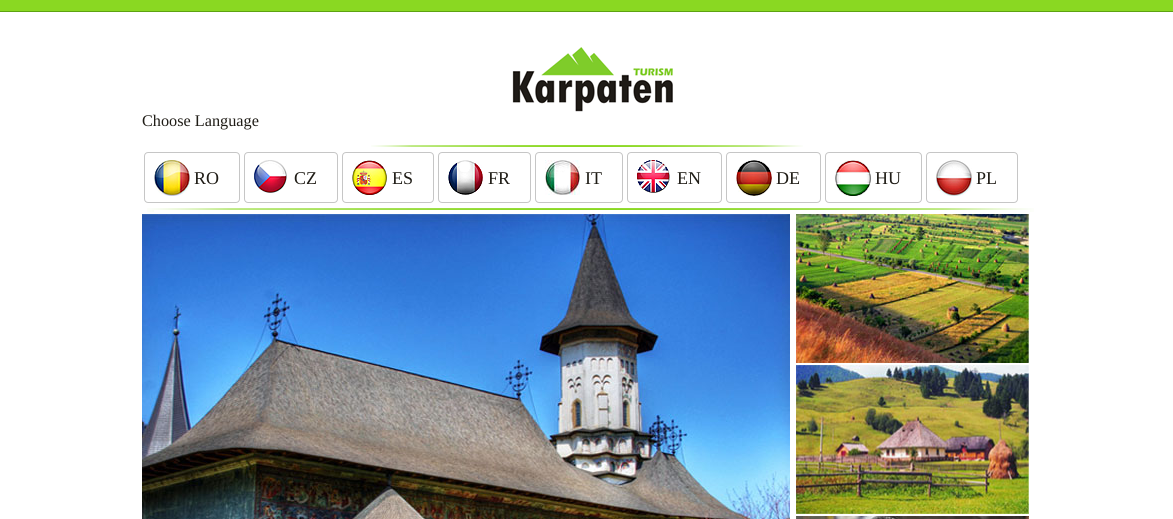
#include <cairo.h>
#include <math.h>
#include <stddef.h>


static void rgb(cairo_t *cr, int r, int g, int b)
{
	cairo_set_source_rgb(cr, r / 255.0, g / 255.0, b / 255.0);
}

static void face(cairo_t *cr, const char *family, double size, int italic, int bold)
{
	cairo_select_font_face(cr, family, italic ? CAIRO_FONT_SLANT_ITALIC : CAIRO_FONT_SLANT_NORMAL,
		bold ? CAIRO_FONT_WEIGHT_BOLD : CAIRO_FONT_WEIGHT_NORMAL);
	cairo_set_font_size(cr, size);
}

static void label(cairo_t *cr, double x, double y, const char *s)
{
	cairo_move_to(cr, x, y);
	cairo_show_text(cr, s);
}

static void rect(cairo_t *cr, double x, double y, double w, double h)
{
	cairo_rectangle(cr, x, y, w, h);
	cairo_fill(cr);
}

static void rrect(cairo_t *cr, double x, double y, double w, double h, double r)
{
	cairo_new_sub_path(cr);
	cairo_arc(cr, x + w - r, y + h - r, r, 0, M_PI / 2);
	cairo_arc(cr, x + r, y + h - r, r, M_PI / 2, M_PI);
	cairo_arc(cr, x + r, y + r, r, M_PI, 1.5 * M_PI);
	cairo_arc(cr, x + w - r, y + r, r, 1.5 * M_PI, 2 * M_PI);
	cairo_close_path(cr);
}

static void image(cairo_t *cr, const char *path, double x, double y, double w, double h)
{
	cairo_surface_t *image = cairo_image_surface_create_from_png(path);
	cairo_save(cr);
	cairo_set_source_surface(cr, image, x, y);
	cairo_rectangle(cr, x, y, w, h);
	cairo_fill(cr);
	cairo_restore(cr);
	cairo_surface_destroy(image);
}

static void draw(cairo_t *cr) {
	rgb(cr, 255, 255, 255);
	cairo_paint(cr);
	rgb(cr, 138, 216, 34);
	rect(cr, 0, 0, 1173, 11);
	rgb(cr, 93, 163, 17);
	rect(cr, 0, 11, 1173, 1);
	image(cr, "image0.png", 512, 47, 161, 65);
	face(cr, "Liberation Serif", 16.25, 0, 0);
	rgb(cr, 31, 28, 22);
	label(cr, 142, 126, "Choose Language");
	image(cr, "image1.png", 371, 145, 432, 2);
	image(cr, "image2.png", 154, 160, 36, 36);
	rrect(cr, 144.5, 152.5, 95, 50, 3.5);
	rgb(cr, 198, 198, 198);
	cairo_set_line_width(cr, 1);
	cairo_stroke(cr);
	face(cr, "Liberation Serif", 18, 0, 0);
	rgb(cr, 31, 28, 22);
	label(cr, 194, 184, "RO");
	image(cr, "image3.png", 254, 160, 33, 33);
	rrect(cr, 244.5, 152.5, 93, 50, 3.5);
	rgb(cr, 198, 198, 198);
	cairo_stroke(cr);
	rgb(cr, 31, 28, 22);
	label(cr, 294, 184, "CZ");
	image(cr, "image4.png", 352, 160, 35, 35);
	rrect(cr, 342.5, 152.5, 91, 50, 3.5);
	rgb(cr, 198, 198, 198);
	cairo_stroke(cr);
	rgb(cr, 31, 28, 22);
	label(cr, 392, 184, "ES");
	image(cr, "image5.png", 448, 160, 35, 35);
	rrect(cr, 438.5, 152.5, 92, 50, 3.5);
	rgb(cr, 198, 198, 198);
	cairo_stroke(cr);
	rgb(cr, 31, 28, 22);
	label(cr, 488, 184, "FR");
	image(cr, "image6.png", 545, 160, 35, 35);
	rrect(cr, 535.5, 152.5, 87, 50, 3.5);
	rgb(cr, 198, 198, 198);
	cairo_stroke(cr);
	rgb(cr, 31, 28, 22);
	label(cr, 585, 184, "IT");
	image(cr, "image7.png", 637, 160, 33, 33);
	rrect(cr, 627.5, 152.5, 94, 50, 3.5);
	rgb(cr, 198, 198, 198);
	cairo_stroke(cr);
	rgb(cr, 31, 28, 22);
	label(cr, 677, 184, "EN");
	image(cr, "image8.png", 736, 160, 36, 36);
	rrect(cr, 726.5, 152.5, 94, 50, 3.5);
	rgb(cr, 198, 198, 198);
	cairo_stroke(cr);
	rgb(cr, 31, 28, 22);
	label(cr, 776, 184, "DE");
	image(cr, "image9.png", 835, 160, 36, 36);
	rrect(cr, 825.5, 152.5, 96, 50, 3.5);
	rgb(cr, 198, 198, 198);
	cairo_stroke(cr);
	rgb(cr, 31, 28, 22);
	label(cr, 875, 184, "HU");
	image(cr, "image10.png", 936, 160, 36, 36);
	rrect(cr, 926.5, 152.5, 91, 50, 3.5);
	rgb(cr, 198, 198, 198);
	cairo_stroke(cr);
	rgb(cr, 31, 28, 22);
	label(cr, 976, 184, "PL");
	image(cr, "image11.png", 147, 208, 887, 4);
	image(cr, "image12.png", 142, 214, 648, 305);
	image(cr, "image13.png", 796, 214, 233, 149);
	image(cr, "image14.png", 796, 365, 233, 149);
	image(cr, "image15.png", 796, 516, 233, 3);
}

int main(void) {
	cairo_surface_t *surface = cairo_image_surface_create(CAIRO_FORMAT_RGB24, 1173, 519);
	cairo_t *cr = cairo_create(surface);
	cairo_font_options_t *options = cairo_font_options_create();
	cairo_font_options_set_hint_metrics(options, CAIRO_HINT_METRICS_OFF);
	cairo_font_options_set_hint_style(options, CAIRO_HINT_STYLE_NONE);
	cairo_set_font_options(cr, options);
	cairo_set_miter_limit(cr, 4);
	draw(cr);
	cairo_surface_write_to_png(surface, "render.png");
	cairo_font_options_destroy(options);
	cairo_destroy(cr);
	cairo_surface_destroy(surface);
	return 0;
}
